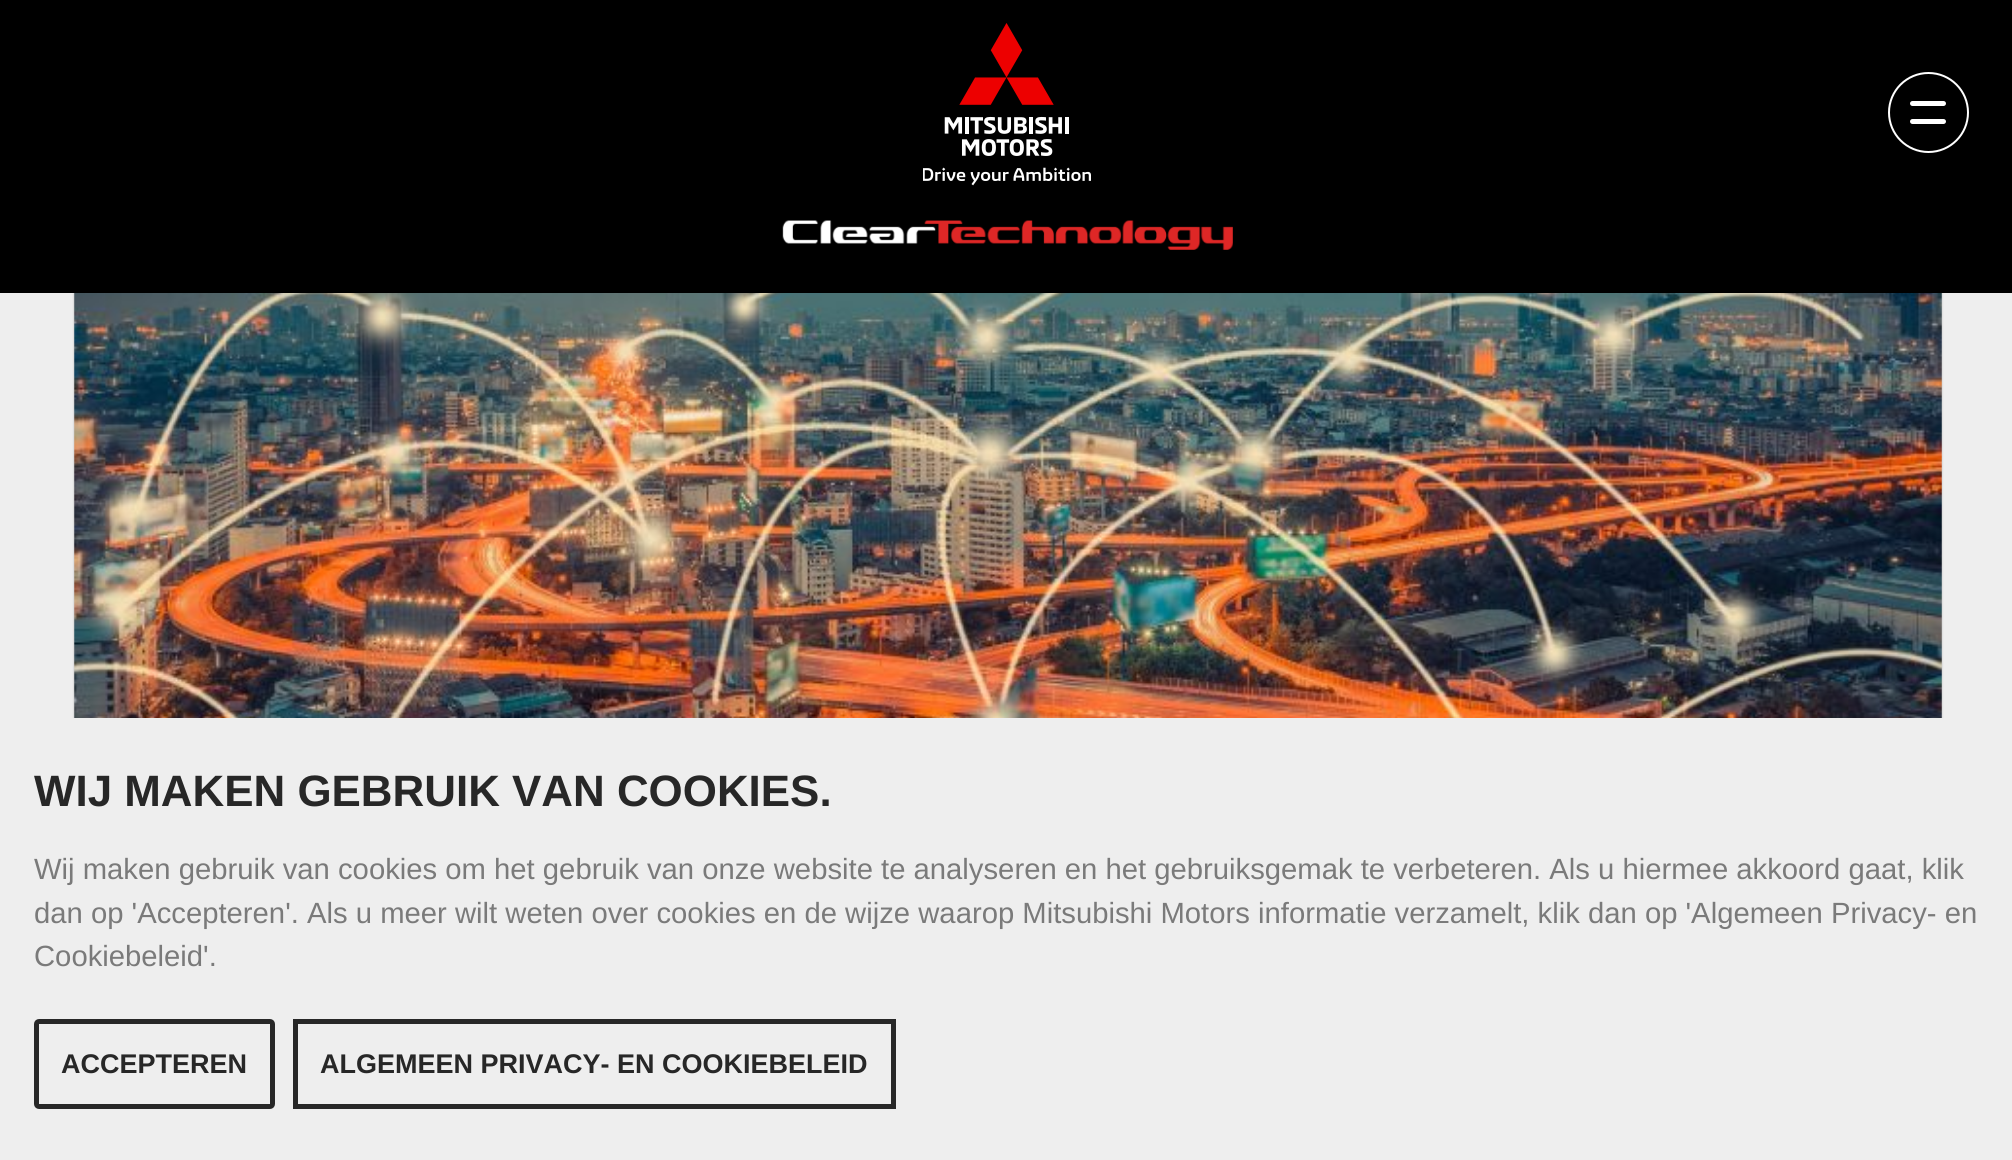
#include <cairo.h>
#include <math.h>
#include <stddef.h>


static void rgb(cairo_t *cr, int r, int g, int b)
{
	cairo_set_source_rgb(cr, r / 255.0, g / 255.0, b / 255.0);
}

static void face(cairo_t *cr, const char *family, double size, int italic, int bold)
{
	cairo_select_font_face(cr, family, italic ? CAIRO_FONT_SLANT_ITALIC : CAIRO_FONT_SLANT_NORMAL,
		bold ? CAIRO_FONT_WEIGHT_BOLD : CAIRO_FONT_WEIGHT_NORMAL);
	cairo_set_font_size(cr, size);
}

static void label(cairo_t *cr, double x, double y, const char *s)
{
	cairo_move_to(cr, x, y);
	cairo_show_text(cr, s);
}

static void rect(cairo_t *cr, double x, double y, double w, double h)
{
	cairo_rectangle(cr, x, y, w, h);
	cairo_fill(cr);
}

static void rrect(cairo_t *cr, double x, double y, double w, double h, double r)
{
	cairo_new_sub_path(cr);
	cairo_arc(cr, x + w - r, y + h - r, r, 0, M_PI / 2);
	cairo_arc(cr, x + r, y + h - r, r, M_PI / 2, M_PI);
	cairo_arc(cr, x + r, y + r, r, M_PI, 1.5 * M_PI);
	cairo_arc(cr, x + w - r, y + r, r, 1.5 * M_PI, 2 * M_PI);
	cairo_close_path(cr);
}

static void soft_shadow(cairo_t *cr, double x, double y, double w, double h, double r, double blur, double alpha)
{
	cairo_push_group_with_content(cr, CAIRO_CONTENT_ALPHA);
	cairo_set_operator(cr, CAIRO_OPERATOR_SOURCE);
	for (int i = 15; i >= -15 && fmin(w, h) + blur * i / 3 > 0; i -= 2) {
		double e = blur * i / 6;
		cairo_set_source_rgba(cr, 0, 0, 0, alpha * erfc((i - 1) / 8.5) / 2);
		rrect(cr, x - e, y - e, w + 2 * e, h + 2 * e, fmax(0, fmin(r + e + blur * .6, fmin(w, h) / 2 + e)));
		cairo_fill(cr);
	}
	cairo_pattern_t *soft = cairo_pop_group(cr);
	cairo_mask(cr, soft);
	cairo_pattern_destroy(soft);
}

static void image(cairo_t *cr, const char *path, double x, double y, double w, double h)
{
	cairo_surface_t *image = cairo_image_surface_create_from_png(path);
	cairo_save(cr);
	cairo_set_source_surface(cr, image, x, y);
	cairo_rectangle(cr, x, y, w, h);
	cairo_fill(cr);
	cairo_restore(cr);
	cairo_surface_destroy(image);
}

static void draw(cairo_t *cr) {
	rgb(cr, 238, 238, 238);
	cairo_paint(cr);
	rgb(cr, 0, 0, 0);
	soft_shadow(cr, 74, 61, 1868, 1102, 0, 1, 0.2);
	rgb(cr, 0, 0, 0);
	rect(cr, 0, 0, 2012, 293);
	image(cr, "image0.png", 923, 23, 168, 163);
	image(cr, "image1.png", 782, 220, 451, 30);
	cairo_arc(cr, 1928.5, 112.5, 39.5, 0, 2 * M_PI);
	rgb(cr, 255, 255, 255);
	cairo_stroke(cr);
	rrect(cr, 1910, 101, 36, 5, 2.5);
	cairo_fill(cr);
	rrect(cr, 1910, 119, 36, 5, 2.5);
	cairo_fill(cr);
	image(cr, "image2.png", 74, 293, 1868, 425);
	rgb(cr, 238, 238, 238);
	rect(cr, 72, 718, 1872, 442);
	face(cr, "Liberation Sans", 43.9, 0, 1);
	rgb(cr, 39, 39, 39);
	label(cr, 34, 806, "WIJ MAKEN GEBRUIK VAN COOKIES.");
	face(cr, "Liberation Sans", 29.25, 0, 0);
	rgb(cr, 122, 122, 122);
	label(cr, 34, 879, "Wij maken gebruik van cookies om het gebruik van onze website te analyseren en het gebruiksgemak te verbeteren. Als u hiermee akkoord gaat, klik");
	label(cr, 34, 923, "dan op 'Accepteren'. Als u meer wilt weten over cookies en de wijze waarop Mitsubishi Motors informatie verzamelt, klik dan op 'Algemeen Privacy- en");
	label(cr, 34, 966, "Cookiebeleid'.");
	rrect(cr, 36.5, 1021.5, 236, 85, 2.5);
	rgb(cr, 39, 39, 39);
	cairo_set_line_width(cr, 5);
	cairo_stroke(cr);
	face(cr, "Liberation Sans", 27, 0, 1);
	label(cr, 61, 1073, "ACCEPTEREN");
	cairo_rectangle(cr, 295.5, 1021.5, 598, 85);
	cairo_stroke(cr);
	label(cr, 320, 1073, "ALGEMEEN PRIVACY- EN COOKIEBELEID");
}

int main(void) {
	cairo_surface_t *surface = cairo_image_surface_create(CAIRO_FORMAT_RGB24, 2012, 1160);
	cairo_t *cr = cairo_create(surface);
	cairo_font_options_t *options = cairo_font_options_create();
	cairo_font_options_set_hint_metrics(options, CAIRO_HINT_METRICS_OFF);
	cairo_font_options_set_hint_style(options, CAIRO_HINT_STYLE_NONE);
	cairo_set_font_options(cr, options);
	cairo_set_miter_limit(cr, 4);
	draw(cr);
	cairo_surface_write_to_png(surface, "render.png");
	cairo_font_options_destroy(options);
	cairo_destroy(cr);
	cairo_surface_destroy(surface);
	return 0;
}
